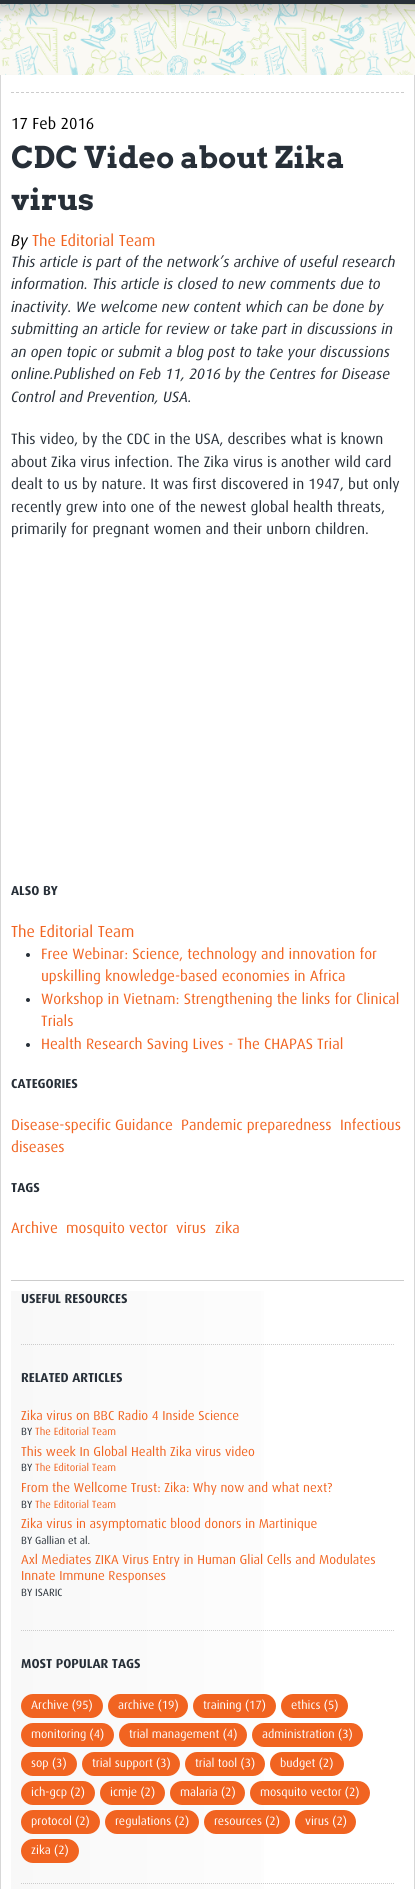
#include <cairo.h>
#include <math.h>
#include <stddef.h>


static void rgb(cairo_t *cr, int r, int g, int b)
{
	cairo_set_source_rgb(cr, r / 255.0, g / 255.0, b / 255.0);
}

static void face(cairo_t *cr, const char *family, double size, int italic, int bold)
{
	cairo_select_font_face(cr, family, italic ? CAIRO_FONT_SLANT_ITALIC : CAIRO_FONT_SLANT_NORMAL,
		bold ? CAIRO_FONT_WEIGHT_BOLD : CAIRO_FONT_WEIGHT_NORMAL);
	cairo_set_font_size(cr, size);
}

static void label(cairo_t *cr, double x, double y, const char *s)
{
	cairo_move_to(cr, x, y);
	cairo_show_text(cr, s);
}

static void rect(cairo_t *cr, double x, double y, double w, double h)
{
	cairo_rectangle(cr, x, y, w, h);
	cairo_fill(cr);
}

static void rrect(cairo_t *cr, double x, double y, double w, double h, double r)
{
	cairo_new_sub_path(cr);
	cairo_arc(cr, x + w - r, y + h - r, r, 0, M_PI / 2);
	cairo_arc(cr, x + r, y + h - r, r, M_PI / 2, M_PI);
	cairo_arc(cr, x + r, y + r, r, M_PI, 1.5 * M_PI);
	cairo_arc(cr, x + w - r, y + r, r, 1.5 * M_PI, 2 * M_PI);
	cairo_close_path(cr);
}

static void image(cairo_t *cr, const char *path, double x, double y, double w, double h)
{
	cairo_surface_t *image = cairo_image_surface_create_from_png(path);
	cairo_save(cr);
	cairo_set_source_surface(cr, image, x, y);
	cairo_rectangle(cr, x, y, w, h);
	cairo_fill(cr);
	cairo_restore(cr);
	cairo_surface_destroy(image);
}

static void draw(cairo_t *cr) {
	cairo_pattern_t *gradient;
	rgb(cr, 255, 255, 255);
	cairo_paint(cr);
	rgb(cr, 39, 47, 56);
	rect(cr, 0, 0, 415, 4);
	image(cr, "image0.png", 0, 4, 415, 71);
	rgb(cr, 215, 215, 215);
	rect(cr, 414, 75, 1, 1814);
	rect(cr, 0, 75, 1, 1814);
	cairo_new_path(cr);
	cairo_move_to(cr, 11, 92.5);
	cairo_line_to(cr, 404, 92.5);
	rgb(cr, 204, 204, 204);
	cairo_set_line_width(cr, 1);
	cairo_set_dash(cr, (double[]){3, 2}, 2, 0);
	cairo_stroke(cr);
	face(cr, "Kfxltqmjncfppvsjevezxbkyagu", 16, 0, 0);
	rgb(cr, 0, 0, 0);
	label(cr, 11, 129, "17 Feb 2016");
	face(cr, "Arvo", 30, 0, 1);
	rgb(cr, 39, 47, 56);
	label(cr, 11, 168, "CDC Video about Zika");
	label(cr, 11, 210, "virus");
	face(cr, "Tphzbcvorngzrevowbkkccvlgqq", 16, 0, 0);
	rgb(cr, 0, 0, 0);
	label(cr, 11, 246, "By");
	face(cr, "Kfxltqmjncfppvsjevezxbkyagu", 16, 0, 0);
	rgb(cr, 241, 100, 33);
	label(cr, 32, 246, "The Editorial Team");
	face(cr, "Tphzbcvorngzrevowbkkccvlgqq", 15, 0, 0);
	rgb(cr, 39, 47, 56);
	label(cr, 11, 267, "This article is part of the network’s archive of useful research");
	label(cr, 11, 289, "information. This article is closed to new comments due to");
	label(cr, 11, 312, "inactivity. We welcome new content which can be done by");
	label(cr, 11, 334, "submitting an article for review or take part in discussions in");
	label(cr, 11, 357, "an open topic or submit a blog post to take your discussions");
	label(cr, 11, 379, "online.Published on Feb 11, 2016 by the Centres for Disease");
	label(cr, 11, 402, "Control and Prevention, USA.");
	face(cr, "Kfxltqmjncfppvsjevezxbkyagu", 15, 0, 0);
	label(cr, 11, 444, "This video, by the CDC in the USA, describes what is known");
	label(cr, 11, 467, "about Zika virus infection. The Zika virus is another wild card");
	label(cr, 11, 489, "dealt to us by nature. It was first discovered in 1947, but only");
	label(cr, 11, 512, "recently grew into one of the newest global health threats,");
	label(cr, 11, 534, "primarily for pregnant women and their unborn children.");
	face(cr, "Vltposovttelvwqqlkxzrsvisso", 13, 0, 1);
	label(cr, 11, 895, "ALSO BY");
	face(cr, "Kfxltqmjncfppvsjevezxbkyagu", 16, 0, 0);
	rgb(cr, 241, 100, 33);
	label(cr, 11, 937, "The Editorial Team");
	rgb(cr, 39, 47, 56);
	cairo_new_path(cr);
	cairo_arc(cr, 28, 955, 2, 0, 2 * M_PI);
	cairo_fill(cr);
	face(cr, "Kfxltqmjncfppvsjevezxbkyagu", 15, 0, 0);
	rgb(cr, 241, 100, 33);
	label(cr, 41, 959, "Free Webinar: Science, technology and innovation for");
	label(cr, 41, 981, "upskilling knowledge-based economies in Africa");
	rgb(cr, 39, 47, 56);
	cairo_new_path(cr);
	cairo_arc(cr, 28, 1000, 2, 0, 2 * M_PI);
	cairo_fill(cr);
	rgb(cr, 241, 100, 33);
	label(cr, 41, 1004, "Workshop in Vietnam: Strengthening the links for Clinical");
	label(cr, 41, 1026, "Trials");
	rgb(cr, 39, 47, 56);
	cairo_new_path(cr);
	cairo_arc(cr, 28, 1045, 2, 0, 2 * M_PI);
	cairo_fill(cr);
	rgb(cr, 241, 100, 33);
	label(cr, 41, 1049, "Health Research Saving Lives - The CHAPAS Trial");
	face(cr, "Vltposovttelvwqqlkxzrsvisso", 13, 0, 1);
	rgb(cr, 39, 47, 56);
	label(cr, 11, 1088, "CATEGORIES");
	face(cr, "Kfxltqmjncfppvsjevezxbkyagu", 15, 0, 0);
	rgb(cr, 241, 100, 33);
	label(cr, 11, 1130, "Disease-specific Guidance");
	label(cr, 181, 1130, "Pandemic preparedness");
	label(cr, 340, 1130, "Infectious");
	label(cr, 11, 1152, "diseases");
	face(cr, "Vltposovttelvwqqlkxzrsvisso", 13, 0, 1);
	rgb(cr, 39, 47, 56);
	label(cr, 11, 1192, "TAGS");
	face(cr, "Kfxltqmjncfppvsjevezxbkyagu", 15, 0, 0);
	rgb(cr, 241, 100, 33);
	label(cr, 11, 1233, "Archive");
	label(cr, 66, 1233, "mosquito vector");
	label(cr, 176, 1233, "virus");
	label(cr, 215, 1233, "zika");
	rgb(cr, 204, 204, 204);
	rect(cr, 11, 1280, 393, 1);
	gradient = cairo_pattern_create_linear(11, 1600, 404, 1600);
	cairo_pattern_add_color_stop_rgba(gradient, 0, 0.973, 0.973, 0.973, 1);
	cairo_pattern_add_color_stop_rgba(gradient, 1, 1, 1, 1, 1);
	cairo_set_source(cr, gradient);
	cairo_pattern_destroy(gradient);
	rect(cr, 11, 1291, 253, 598);
	cairo_new_path(cr);
	cairo_move_to(cr, 21, 1344.5);
	cairo_line_to(cr, 394, 1344.5);
	rgb(cr, 204, 204, 204);
	cairo_set_dash(cr, (double[]){1, 1}, 2, 0);
	cairo_stroke(cr);
	face(cr, "Vltposovttelvwqqlkxzrsvisso", 13, 0, 1);
	rgb(cr, 39, 47, 56);
	label(cr, 21, 1303, "USEFUL RESOURCES");
	cairo_new_path(cr);
	cairo_move_to(cr, 21, 1630.5);
	cairo_line_to(cr, 394, 1630.5);
	rgb(cr, 204, 204, 204);
	cairo_stroke(cr);
	rgb(cr, 39, 47, 56);
	label(cr, 21, 1382, "RELATED ARTICLES");
	face(cr, "Kfxltqmjncfppvsjevezxbkyagu", 13, 0, 0);
	rgb(cr, 241, 100, 33);
	label(cr, 21, 1420, "Zika virus on BBC Radio 4 Inside Science");
	face(cr, "Kfxltqmjncfppvsjevezxbkyagu", 10.5, 0, 0);
	rgb(cr, 39, 47, 56);
	label(cr, 21, 1435, "BY");
	rgb(cr, 241, 100, 33);
	label(cr, 35, 1435, "The Editorial Team");
	face(cr, "Kfxltqmjncfppvsjevezxbkyagu", 13, 0, 0);
	label(cr, 21, 1456, "This week In Global Health Zika virus video");
	face(cr, "Kfxltqmjncfppvsjevezxbkyagu", 10.5, 0, 0);
	rgb(cr, 39, 47, 56);
	label(cr, 21, 1471, "BY");
	rgb(cr, 241, 100, 33);
	label(cr, 35, 1471, "The Editorial Team");
	face(cr, "Kfxltqmjncfppvsjevezxbkyagu", 13, 0, 0);
	label(cr, 21, 1492, "From the Wellcome Trust: Zika: Why now and what next?");
	face(cr, "Kfxltqmjncfppvsjevezxbkyagu", 10.5, 0, 0);
	rgb(cr, 39, 47, 56);
	label(cr, 21, 1508, "BY");
	rgb(cr, 241, 100, 33);
	label(cr, 35, 1508, "The Editorial Team");
	face(cr, "Kfxltqmjncfppvsjevezxbkyagu", 13, 0, 0);
	label(cr, 21, 1528, "Zika virus in asymptomatic blood donors in Martinique");
	face(cr, "Kfxltqmjncfppvsjevezxbkyagu", 10.5, 0, 0);
	rgb(cr, 39, 47, 56);
	label(cr, 21, 1544, "BY Gallian et al.");
	face(cr, "Kfxltqmjncfppvsjevezxbkyagu", 13, 0, 0);
	rgb(cr, 241, 100, 33);
	label(cr, 21, 1564, "Axl Mediates ZIKA Virus Entry in Human Glial Cells and Modulates");
	label(cr, 21, 1580, "Innate Immune Responses");
	face(cr, "Kfxltqmjncfppvsjevezxbkyagu", 10.5, 0, 0);
	rgb(cr, 39, 47, 56);
	label(cr, 21, 1596, "BY ISARIC");
	cairo_new_path(cr);
	cairo_move_to(cr, 21, 1883.5);
	cairo_line_to(cr, 394, 1883.5);
	rgb(cr, 204, 204, 204);
	cairo_stroke(cr);
	face(cr, "Vltposovttelvwqqlkxzrsvisso", 13, 0, 1);
	rgb(cr, 39, 47, 56);
	label(cr, 21, 1668, "MOST POPULAR TAGS");
	rgb(cr, 241, 100, 33);
	rrect(cr, 21, 1694, 82, 24, 12);
	cairo_fill(cr);
	face(cr, "Kfxltqmjncfppvsjevezxbkyagu", 12, 0, 0);
	rgb(cr, 255, 255, 255);
	label(cr, 31, 1709, "Archive (95)");
	rgb(cr, 241, 100, 33);
	rrect(cr, 108, 1694, 80, 24, 12);
	cairo_fill(cr);
	rgb(cr, 255, 255, 255);
	label(cr, 118, 1709, "archive (19)");
	rgb(cr, 241, 100, 33);
	rrect(cr, 193, 1694, 83, 24, 12);
	cairo_fill(cr);
	rgb(cr, 255, 255, 255);
	label(cr, 203, 1709, "training (17)");
	rgb(cr, 241, 100, 33);
	rrect(cr, 281, 1694, 67, 24, 12);
	cairo_fill(cr);
	rgb(cr, 255, 255, 255);
	label(cr, 291, 1709, "ethics (5)");
	rgb(cr, 241, 100, 33);
	rrect(cr, 21, 1723, 93, 24, 12);
	cairo_fill(cr);
	rgb(cr, 255, 255, 255);
	label(cr, 31, 1738, "monitoring (4)");
	rgb(cr, 241, 100, 33);
	rrect(cr, 119, 1723, 128, 24, 12);
	cairo_fill(cr);
	rgb(cr, 255, 255, 255);
	label(cr, 129, 1738, "trial management (4)");
	rgb(cr, 241, 100, 33);
	rrect(cr, 252, 1723, 111, 24, 12);
	cairo_fill(cr);
	rgb(cr, 255, 255, 255);
	label(cr, 262, 1738, "administration (3)");
	rgb(cr, 241, 100, 33);
	rrect(cr, 21, 1752, 56, 24, 12);
	cairo_fill(cr);
	rgb(cr, 255, 255, 255);
	label(cr, 31, 1767, "sop (3)");
	rgb(cr, 241, 100, 33);
	rrect(cr, 82, 1752, 98, 24, 12);
	cairo_fill(cr);
	rgb(cr, 255, 255, 255);
	label(cr, 92, 1767, "trial support (3)");
	rgb(cr, 241, 100, 33);
	rrect(cr, 185, 1752, 80, 24, 12);
	cairo_fill(cr);
	rgb(cr, 255, 255, 255);
	label(cr, 195, 1767, "trial tool (3)");
	rgb(cr, 241, 100, 33);
	rrect(cr, 270, 1752, 74, 24, 12);
	cairo_fill(cr);
	rgb(cr, 255, 255, 255);
	label(cr, 280, 1767, "budget (2)");
	rgb(cr, 241, 100, 33);
	rrect(cr, 21, 1781, 74, 24, 12);
	cairo_fill(cr);
	rgb(cr, 255, 255, 255);
	label(cr, 31, 1796, "ich-gcp (2)");
	rgb(cr, 241, 100, 33);
	rrect(cr, 100, 1781, 65, 24, 12);
	cairo_fill(cr);
	rgb(cr, 255, 255, 255);
	label(cr, 110, 1796, "icmje (2)");
	rgb(cr, 241, 100, 33);
	rrect(cr, 170, 1781, 75, 24, 12);
	cairo_fill(cr);
	rgb(cr, 255, 255, 255);
	label(cr, 180, 1796, "malaria (2)");
	rgb(cr, 241, 100, 33);
	rrect(cr, 250, 1781, 120, 24, 12);
	cairo_fill(cr);
	rgb(cr, 255, 255, 255);
	label(cr, 260, 1796, "mosquito vector (2)");
	rgb(cr, 241, 100, 33);
	rrect(cr, 21, 1810, 79, 24, 12);
	cairo_fill(cr);
	rgb(cr, 255, 255, 255);
	label(cr, 31, 1825, "protocol (2)");
	rgb(cr, 241, 100, 33);
	rrect(cr, 105, 1810, 94, 24, 12);
	cairo_fill(cr);
	rgb(cr, 255, 255, 255);
	label(cr, 115, 1825, "regulations (2)");
	rgb(cr, 241, 100, 33);
	rrect(cr, 204, 1810, 86, 24, 12);
	cairo_fill(cr);
	rgb(cr, 255, 255, 255);
	label(cr, 214, 1825, "resources (2)");
	rgb(cr, 241, 100, 33);
	rrect(cr, 295, 1810, 61, 24, 12);
	cairo_fill(cr);
	rgb(cr, 255, 255, 255);
	label(cr, 305, 1825, "virus (2)");
	rgb(cr, 241, 100, 33);
	rrect(cr, 21, 1839, 58, 24, 12);
	cairo_fill(cr);
	rgb(cr, 255, 255, 255);
	label(cr, 31, 1854, "zika (2)");
}

int main(void) {
	cairo_surface_t *surface = cairo_image_surface_create(CAIRO_FORMAT_RGB24, 415, 1889);
	cairo_t *cr = cairo_create(surface);
	cairo_font_options_t *options = cairo_font_options_create();
	cairo_font_options_set_hint_metrics(options, CAIRO_HINT_METRICS_OFF);
	cairo_font_options_set_hint_style(options, CAIRO_HINT_STYLE_NONE);
	cairo_set_font_options(cr, options);
	cairo_set_miter_limit(cr, 4);
	draw(cr);
	cairo_surface_write_to_png(surface, "render.png");
	cairo_font_options_destroy(options);
	cairo_destroy(cr);
	cairo_surface_destroy(surface);
	return 0;
}
